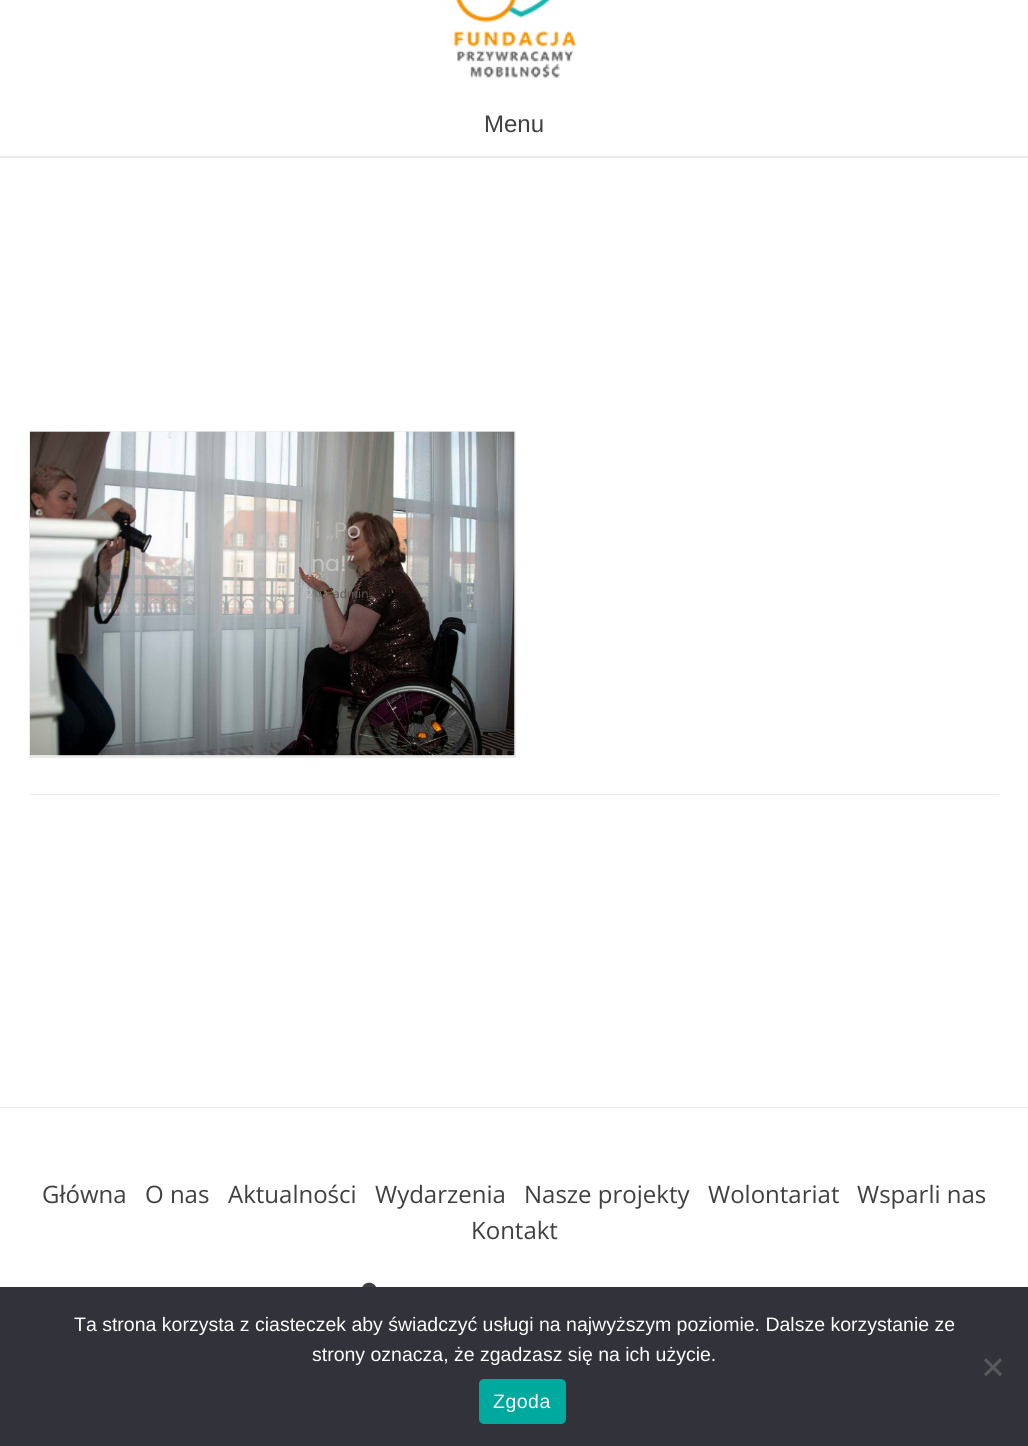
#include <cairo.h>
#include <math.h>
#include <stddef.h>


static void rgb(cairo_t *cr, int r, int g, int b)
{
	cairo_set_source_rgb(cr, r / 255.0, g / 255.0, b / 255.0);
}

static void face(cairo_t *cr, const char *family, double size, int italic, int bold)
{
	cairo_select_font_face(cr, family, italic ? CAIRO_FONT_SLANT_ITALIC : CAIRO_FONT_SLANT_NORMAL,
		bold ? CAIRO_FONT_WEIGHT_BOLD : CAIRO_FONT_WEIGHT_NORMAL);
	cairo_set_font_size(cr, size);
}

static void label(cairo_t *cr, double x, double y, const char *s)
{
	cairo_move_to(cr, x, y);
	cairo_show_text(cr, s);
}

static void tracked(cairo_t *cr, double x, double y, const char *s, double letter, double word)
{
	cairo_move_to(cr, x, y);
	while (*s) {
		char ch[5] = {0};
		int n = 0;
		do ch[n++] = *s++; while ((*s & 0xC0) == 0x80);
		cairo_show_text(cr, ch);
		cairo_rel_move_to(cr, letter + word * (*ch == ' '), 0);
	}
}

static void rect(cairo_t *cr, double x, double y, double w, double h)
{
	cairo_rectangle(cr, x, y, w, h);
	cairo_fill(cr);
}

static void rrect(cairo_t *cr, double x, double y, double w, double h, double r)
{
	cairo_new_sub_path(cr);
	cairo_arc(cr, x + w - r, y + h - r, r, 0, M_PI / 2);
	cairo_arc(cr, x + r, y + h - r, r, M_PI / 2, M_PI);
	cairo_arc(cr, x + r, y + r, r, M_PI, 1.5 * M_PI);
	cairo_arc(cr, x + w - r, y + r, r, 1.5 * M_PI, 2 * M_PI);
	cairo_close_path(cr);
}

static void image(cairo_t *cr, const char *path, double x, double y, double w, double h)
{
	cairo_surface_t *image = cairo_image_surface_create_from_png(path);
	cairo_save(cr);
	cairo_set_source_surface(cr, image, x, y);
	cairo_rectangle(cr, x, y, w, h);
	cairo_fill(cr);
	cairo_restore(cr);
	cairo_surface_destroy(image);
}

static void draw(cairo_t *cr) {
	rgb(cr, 255, 255, 255);
	cairo_paint(cr);
	rgb(cr, 235, 235, 235);
	rect(cr, 0, 156, 1028, 2);
	image(cr, "image0.png", 454, 0, 123, 78);
	face(cr, "Liberation Sans", 24, 0, 0);
	rgb(cr, 64, 64, 64);
	label(cr, 484, 132, "Menu");
	rgb(cr, 235, 235, 235);
	rect(cr, 30, 794, 969, 1);
	cairo_rectangle(cr, 30, 432, 485, 325);
	cairo_stroke(cr);
	image(cr, "image1.png", 30, 431, 485, 325);
	face(cr, "Poppins", 22, 0, 0);
	rgb(cr, 187, 179, 175);
	label(cr, 184, 538, "I");
	label(cr, 315, 538, "i „Po");
	rgb(cr, 198, 196, 192);
	label(cr, 311, 571, "na!”");
	face(cr, "Open Sans", 12, 0, 0);
	label(cr, 306, 598, "2");
	rgb(cr, 91, 84, 80);
	label(cr, 333, 598, "admin");
	rgb(cr, 235, 235, 235);
	rect(cr, 0, 1107, 1028, 1);
	face(cr, "Open Sans", 24, 0, 0);
	rgb(cr, 64, 64, 64);
	label(cr, 42, 1203, "Główna");
	label(cr, 145, 1203, "O nas");
	label(cr, 228, 1203, "Aktualności");
	label(cr, 375, 1203, "Wydarzenia");
	label(cr, 524, 1203, "Nasze projekty");
	label(cr, 708, 1203, "Wolontariat");
	label(cr, 857, 1203, "Wsparli nas");
	label(cr, 471, 1239, "Kontakt");
	image(cr, "image2.png", 362, 1282, 14, 5);
	rgb(cr, 50, 50, 58);
	rect(cr, 0, 1287, 1028, 159);
	face(cr, "Liberation Sans", 19.5, 0, 0);
	rgb(cr, 255, 255, 255);
	label(cr, 74, 1331, "Ta strona korzysta z ciasteczek aby świadczyć usługi na najwyższym poziomie. Dalsze korzystanie ze");
	label(cr, 312, 1361, "strony oznacza, że zgadzasz się na ich użycie.");
	rgb(cr, 89, 89, 93);
	cairo_new_path(cr);
	cairo_move_to(cr, 1000, 1358);
	cairo_line_to(cr, 1002, 1360.5);
	cairo_line_to(cr, 986, 1376.5);
	cairo_line_to(cr, 984, 1374);
	cairo_close_path(cr);
	cairo_fill(cr);
	cairo_new_path(cr);
	cairo_move_to(cr, 984, 1360.5);
	cairo_line_to(cr, 986, 1358);
	cairo_line_to(cr, 1002, 1374);
	cairo_line_to(cr, 1000, 1376.5);
	cairo_close_path(cr);
	cairo_fill(cr);
	rgb(cr, 0, 169, 157);
	rrect(cr, 479, 1379, 87, 45, 5);
	cairo_fill(cr);
	rgb(cr, 255, 255, 255);
	tracked(cr, 493, 1408, "Zgoda", 0.5, 0);
}

int main(void) {
	cairo_surface_t *surface = cairo_image_surface_create(CAIRO_FORMAT_RGB24, 1028, 1446);
	cairo_t *cr = cairo_create(surface);
	cairo_font_options_t *options = cairo_font_options_create();
	cairo_font_options_set_hint_metrics(options, CAIRO_HINT_METRICS_OFF);
	cairo_font_options_set_hint_style(options, CAIRO_HINT_STYLE_NONE);
	cairo_set_font_options(cr, options);
	cairo_set_miter_limit(cr, 4);
	draw(cr);
	cairo_surface_write_to_png(surface, "render.png");
	cairo_font_options_destroy(options);
	cairo_destroy(cr);
	cairo_surface_destroy(surface);
	return 0;
}
